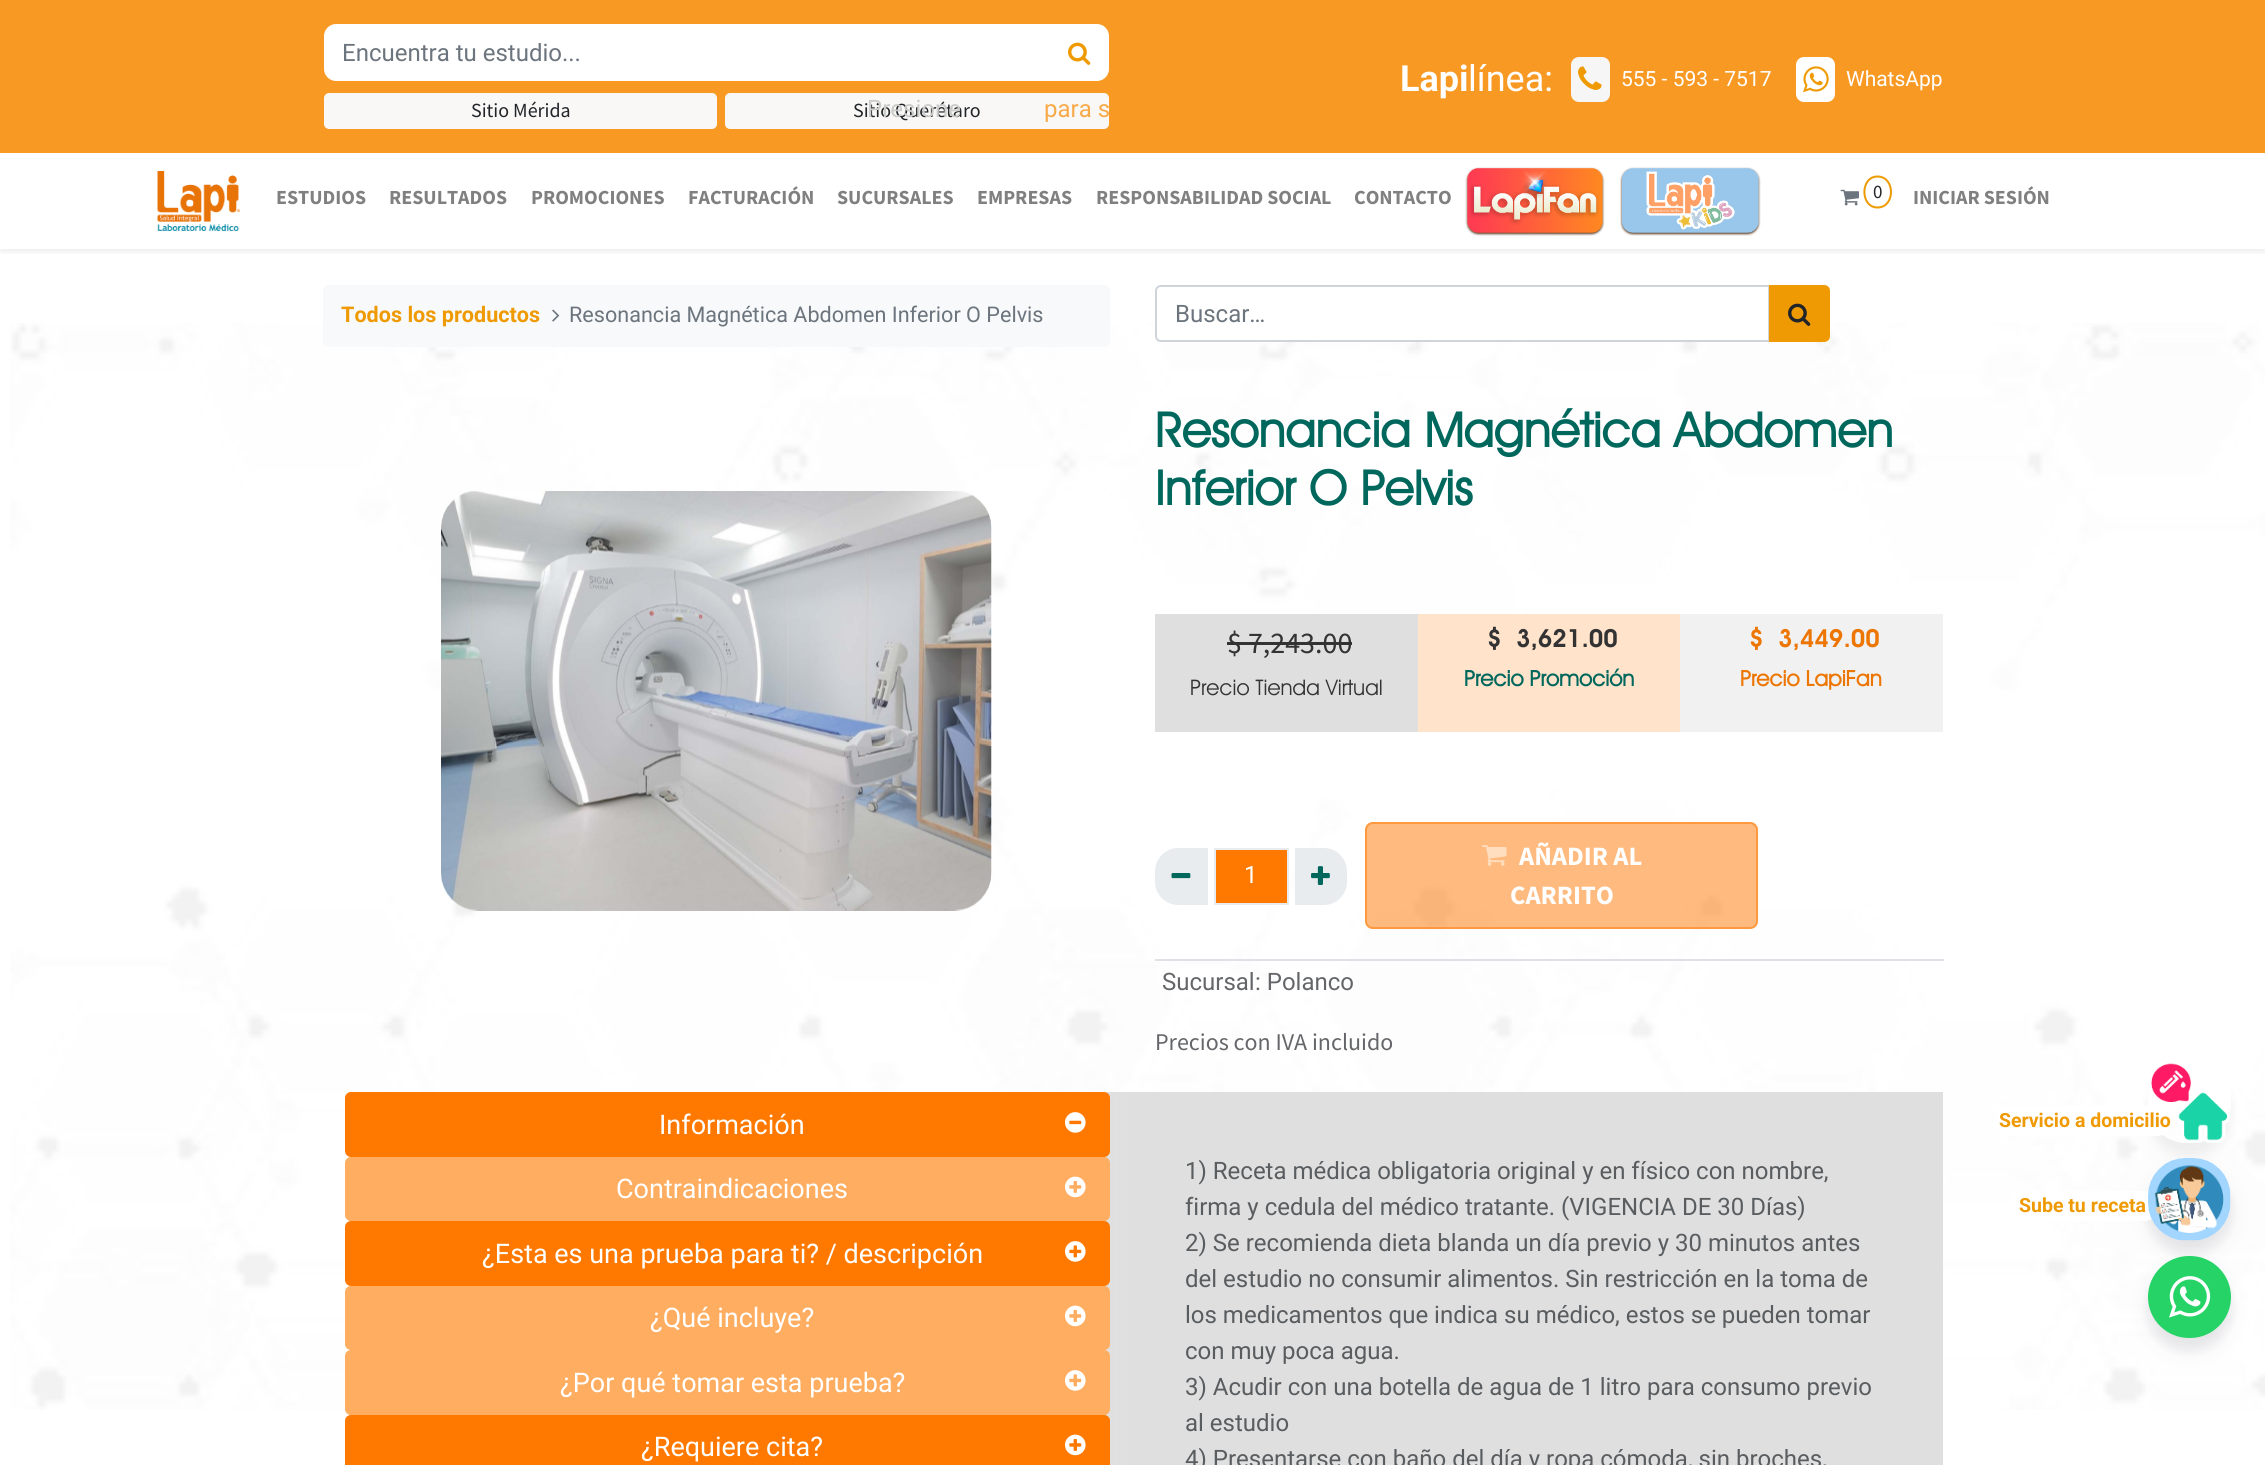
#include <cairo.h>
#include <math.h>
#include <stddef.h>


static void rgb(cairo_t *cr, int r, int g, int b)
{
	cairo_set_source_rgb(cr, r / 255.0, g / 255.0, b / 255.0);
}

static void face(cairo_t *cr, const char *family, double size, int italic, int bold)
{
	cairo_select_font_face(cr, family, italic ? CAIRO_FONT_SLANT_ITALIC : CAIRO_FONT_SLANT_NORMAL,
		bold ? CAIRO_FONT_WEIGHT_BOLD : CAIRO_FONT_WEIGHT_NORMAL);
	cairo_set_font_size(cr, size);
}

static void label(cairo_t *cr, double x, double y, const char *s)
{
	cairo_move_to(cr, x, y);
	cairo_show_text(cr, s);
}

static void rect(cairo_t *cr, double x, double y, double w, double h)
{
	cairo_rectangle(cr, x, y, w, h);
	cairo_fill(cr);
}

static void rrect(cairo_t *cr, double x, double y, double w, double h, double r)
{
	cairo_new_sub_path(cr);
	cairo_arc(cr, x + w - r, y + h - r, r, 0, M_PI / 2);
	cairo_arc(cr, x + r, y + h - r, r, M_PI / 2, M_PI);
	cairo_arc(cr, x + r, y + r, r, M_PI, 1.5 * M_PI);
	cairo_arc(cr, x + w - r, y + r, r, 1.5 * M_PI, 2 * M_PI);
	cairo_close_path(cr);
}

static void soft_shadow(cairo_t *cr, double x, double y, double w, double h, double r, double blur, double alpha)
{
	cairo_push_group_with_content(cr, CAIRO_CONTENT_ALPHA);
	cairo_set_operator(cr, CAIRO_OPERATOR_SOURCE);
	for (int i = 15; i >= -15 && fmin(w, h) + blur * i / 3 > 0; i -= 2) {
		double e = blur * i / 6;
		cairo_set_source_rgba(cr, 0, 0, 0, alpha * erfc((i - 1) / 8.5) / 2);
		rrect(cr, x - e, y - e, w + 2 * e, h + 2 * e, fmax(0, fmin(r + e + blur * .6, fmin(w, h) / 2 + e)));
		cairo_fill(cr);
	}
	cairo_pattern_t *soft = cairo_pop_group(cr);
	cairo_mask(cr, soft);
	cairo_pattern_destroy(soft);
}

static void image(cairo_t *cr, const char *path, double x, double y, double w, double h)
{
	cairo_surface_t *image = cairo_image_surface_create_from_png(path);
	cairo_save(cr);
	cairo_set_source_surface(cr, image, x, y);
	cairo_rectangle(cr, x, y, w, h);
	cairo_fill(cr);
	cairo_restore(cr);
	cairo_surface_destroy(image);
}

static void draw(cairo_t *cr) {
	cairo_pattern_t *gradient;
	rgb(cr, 255, 255, 255);
	cairo_paint(cr);
	rgb(cr, 248, 153, 35);
	rect(cr, 0, 0, 2265, 153);
	rgb(cr, 255, 255, 255);
	cairo_new_path(cr);
	cairo_move_to(cr, 336, 24);
	cairo_line_to(cr, 1052, 24);
	cairo_line_to(cr, 1052, 81);
	cairo_line_to(cr, 336, 81);
	cairo_curve_to(cr, 329.5, 81, 324, 75.5, 324, 69);
	cairo_line_to(cr, 324, 36);
	cairo_curve_to(cr, 324, 29.5, 329.5, 24, 336, 24);
	cairo_close_path(cr);
	cairo_fill(cr);
	face(cr, "Roboto", 24, 0, 0);
	rgb(cr, 108, 117, 125);
	label(cr, 342, 61, "Encuentra tu estudio...");
	rgb(cr, 255, 255, 255);
	cairo_new_path(cr);
	cairo_move_to(cr, 1050, 24);
	cairo_line_to(cr, 1097, 24);
	cairo_curve_to(cr, 1103.5, 24, 1109, 29.5, 1109, 36);
	cairo_line_to(cr, 1109, 69);
	cairo_curve_to(cr, 1109, 75.5, 1103.5, 81, 1097, 81);
	cairo_line_to(cr, 1050, 81);
	cairo_close_path(cr);
	cairo_fill(cr);
	image(cr, "image0.png", 1068, 42, 23, 23);
	rgb(cr, 249, 248, 246);
	rrect(cr, 325, 94, 391, 34, 4);
	cairo_fill_preserve(cr);
	cairo_stroke(cr);
	face(cr, "Source Sans Pro", 20, 0, 0);
	rgb(cr, 33, 37, 41);
	label(cr, 471, 117, "Sitio Mérida");
	rgb(cr, 249, 248, 246);
	rrect(cr, 726, 94, 382, 34, 4);
	cairo_fill_preserve(cr);
	cairo_stroke(cr);
	rgb(cr, 33, 37, 41);
	label(cr, 853, 117, "Sitio Querétaro");
	face(cr, "Roboto", 36, 0, 1);
	rgb(cr, 255, 255, 255);
	label(cr, 1400, 91, "Lapi");
	face(cr, "Roboto", 36, 0, 0);
	label(cr, 1468, 91, "línea:");
	rgb(cr, 246, 246, 246);
	rrect(cr, 1571, 57, 39, 45, 8);
	cairo_fill(cr);
	image(cr, "image1.png", 1578, 66, 24, 24);
	face(cr, "Roboto", 21, 0, 0);
	rgb(cr, 255, 255, 255);
	label(cr, 1621, 86, "555 - 593 - 7517");
	rrect(cr, 1796, 57, 39, 45, 8);
	cairo_fill(cr);
	image(cr, "image2.png", 1803, 66, 26, 27);
	label(cr, 1846, 86, "WhatsApp");
	cairo_save(cr);
	cairo_rectangle(cr, 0, 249, 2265, 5);
	cairo_clip(cr);
	rgb(cr, 0, 0, 0);
	soft_shadow(cr, 0, 156, 2265, 96, 0, 3, 0.07);
	cairo_restore(cr);
	image(cr, "image3.png", 157, 171, 83, 60);
	face(cr, "Source Sans Pro", 20, 0, 1);
	rgb(cr, 128, 128, 128);
	label(cr, 276, 204, "ESTUDIOS");
	label(cr, 389, 204, "RESULTADOS");
	label(cr, 531, 204, "PROMOCIONES");
	label(cr, 688, 204, "FACTURACIÓN");
	label(cr, 837, 204, "SUCURSALES");
	label(cr, 977, 204, "EMPRESAS");
	label(cr, 1096, 204, "RESPONSABILIDAD SOCIAL");
	label(cr, 1354, 204, "CONTACTO");
	image(cr, "image4.png", 1465, 167, 140, 69);
	image(cr, "image5.png", 1620, 167, 141, 69);
	image(cr, "image6.png", 1840, 189, 19, 17);
	cairo_new_path(cr);
	cairo_move_to(cr, 1877.5, 176.5);
	cairo_curve_to(cr, 1895.5, 176.5, 1895.5, 207.5, 1877.5, 207.5);
	cairo_curve_to(cr, 1860, 207.5, 1860, 176.5, 1877.5, 176.5);
	cairo_close_path(cr);
	rgb(cr, 239, 154, 2);
	cairo_stroke(cr);
	face(cr, "Source Sans Pro", 19, 0, 0);
	rgb(cr, 33, 37, 41);
	label(cr, 1873, 198, "0");
	face(cr, "Source Sans Pro", 20, 0, 1);
	rgb(cr, 128, 128, 128);
	label(cr, 1913, 204, "INICIAR SESIÓN");
	image(cr, "image7.png", 10, 323, 2255, 1087);
	rgb(cr, 248, 249, 250);
	rrect(cr, 323, 285, 787, 62, 6);
	cairo_fill(cr);
	face(cr, "Roboto", 21.6, 0, 1);
	rgb(cr, 239, 154, 2);
	label(cr, 341, 322, "Todos los productos");
	image(cr, "image8.png", 552, 309, 8, 13);
	face(cr, "Roboto", 21.6, 0, 0);
	rgb(cr, 108, 117, 125);
	label(cr, 569, 322, "Resonancia Magnética Abdomen Inferior O Pelvis");
	rgb(cr, 255, 255, 255);
	cairo_new_path(cr);
	cairo_move_to(cr, 1161, 286);
	cairo_line_to(cr, 1769, 286);
	cairo_line_to(cr, 1769, 341);
	cairo_line_to(cr, 1161, 341);
	cairo_curve_to(cr, 1158, 341, 1156, 339, 1156, 336);
	cairo_line_to(cr, 1156, 291);
	cairo_curve_to(cr, 1156, 288, 1158, 286, 1161, 286);
	cairo_close_path(cr);
	cairo_fill_preserve(cr);
	rgb(cr, 206, 212, 218);
	cairo_stroke(cr);
	face(cr, "Roboto", 24, 0, 0);
	rgb(cr, 108, 117, 125);
	label(cr, 1175, 322, "Buscar…");
	rgb(cr, 239, 154, 2);
	cairo_new_path(cr);
	cairo_move_to(cr, 1770, 286);
	cairo_line_to(cr, 1824, 286);
	cairo_curve_to(cr, 1827, 286, 1829, 288, 1829, 291);
	cairo_line_to(cr, 1829, 336);
	cairo_curve_to(cr, 1829, 339, 1827, 341, 1824, 341);
	cairo_line_to(cr, 1770, 341);
	cairo_close_path(cr);
	cairo_fill_preserve(cr);
	cairo_stroke(cr);
	image(cr, "image9.png", 1788, 303, 23, 23);
	image(cr, "image10.png", 441, 491, 551, 420);
	face(cr, "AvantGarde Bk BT", 48, 0, 1);
	rgb(cr, 0, 103, 93);
	label(cr, 1155, 447, "Resonancia Magnética Abdomen");
	label(cr, 1155, 505, "Inferior O Pelvis");
	rgb(cr, 223, 223, 223);
	rect(cr, 1155, 614, 263, 118);
	face(cr, "Source Sans Pro", 30, 0, 0);
	rgb(cr, 51, 51, 51);
	label(cr, 1227, 653, "$ 7,243.00");
	rect(cr, 1227, 642, 125, 3);
	face(cr, "AvantGarde Bk BT", 21.6, 0, 0);
	label(cr, 1190, 695, "Precio Tienda Virtual");
	rgb(cr, 255, 227, 203);
	rect(cr, 1418, 614, 262, 118);
	face(cr, "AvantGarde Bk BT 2", 25, 0, 1);
	rgb(cr, 51, 51, 51);
	label(cr, 1487, 647, "$");
	label(cr, 1516, 647, "3,621.00");
	face(cr, "AvantGarde Bk BT", 21.6, 0, 1);
	rgb(cr, 0, 103, 93);
	label(cr, 1464, 686, "Precio Promoción");
	rgb(cr, 241, 241, 241);
	rect(cr, 1680, 614, 263, 118);
	face(cr, "AvantGarde Bk BT 2", 25, 0, 1);
	rgb(cr, 237, 118, 2);
	label(cr, 1749, 647, "$");
	label(cr, 1778, 647, "3,449.00");
	face(cr, "AvantGarde Bk BT", 21.6, 0, 1);
	label(cr, 1740, 686, "Precio LapiFan");
	rgb(cr, 233, 236, 239);
	cairo_new_path(cr);
	cairo_move_to(cr, 1178, 848);
	cairo_line_to(cr, 1208, 848);
	cairo_line_to(cr, 1208, 905);
	cairo_line_to(cr, 1178, 905);
	cairo_curve_to(cr, 1165.5, 905, 1155, 894.5, 1155, 882);
	cairo_line_to(cr, 1155, 871);
	cairo_curve_to(cr, 1155, 858.5, 1165.5, 848, 1178, 848);
	cairo_close_path(cr);
	cairo_fill(cr);
	image(cr, "image11.png", 1171, 873, 20, 6);
	rgb(cr, 255, 121, 0);
	cairo_rectangle(cr, 1215, 849, 73, 55);
	cairo_fill_preserve(cr);
	rgb(cr, 233, 236, 239);
	cairo_stroke(cr);
	face(cr, "Roboto", 24, 0, 0);
	rgb(cr, 255, 255, 255);
	label(cr, 1244, 883, "1");
	rgb(cr, 233, 236, 239);
	cairo_new_path(cr);
	cairo_move_to(cr, 1295, 848);
	cairo_line_to(cr, 1324, 848);
	cairo_curve_to(cr, 1336.5, 848, 1347, 858.5, 1347, 871);
	cairo_line_to(cr, 1347, 882);
	cairo_curve_to(cr, 1347, 894.5, 1336.5, 905, 1324, 905);
	cairo_line_to(cr, 1295, 905);
	cairo_close_path(cr);
	cairo_fill(cr);
	image(cr, "image12.png", 1311, 866, 19, 19);
	cairo_set_source_rgba(cr, 1, 0.475, 0, 0.5);
	rrect(cr, 1365, 822, 393, 107, 8);
	cairo_fill(cr);
	rrect(cr, 1366, 823, 391, 105, 7);
	cairo_stroke(cr);
	image(cr, "image13.png", 1482, 845, 25, 21);
	face(cr, "Source Sans Pro", 26.5, 0, 1);
	rgb(cr, 255, 255, 255);
	label(cr, 1519, 865, "AÑADIR AL");
	label(cr, 1510, 904, "CARRITO");
	rgb(cr, 222, 226, 230);
	rect(cr, 1155, 959, 789, 2);
	face(cr, "Roboto", 24, 0, 0);
	rgb(cr, 100, 102, 105);
	label(cr, 1162, 990, "Sucursal");
	label(cr, 1255, 990, ": Polanco");
	face(cr, "Source Sans Pro", 24, 0, 0);
	label(cr, 1155, 1050, "Precios con IVA incluido");
	gradient = cairo_pattern_create_linear(323, 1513, 1133, 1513);
	cairo_pattern_add_color_stop_rgba(gradient, 0, 0.875, 0.875, 0.875, 0);
	cairo_pattern_add_color_stop_rgba(gradient, 1, 0.875, 0.875, 0.875, 1);
	cairo_set_source(cr, gradient);
	cairo_pattern_destroy(gradient);
	rect(cr, 375, 1092, 758, 373);
	rgb(cr, 255, 121, 0);
	rrect(cr, 345, 1092, 765, 65, 6);
	cairo_fill(cr);
	face(cr, "Roboto", 27, 0, 0);
	rgb(cr, 255, 255, 255);
	label(cr, 659, 1134, "Información");
	image(cr, "image14.png", 1065, 1112, 21, 21);
	rgb(cr, 255, 173, 97);
	rrect(cr, 345, 1157, 765, 64, 6);
	cairo_fill(cr);
	rgb(cr, 255, 255, 255);
	label(cr, 616, 1198, "Contraindicaciones");
	image(cr, "image15.png", 1065, 1176, 21, 22);
	rgb(cr, 255, 121, 0);
	rrect(cr, 345, 1221, 765, 65, 6);
	cairo_fill(cr);
	rgb(cr, 255, 255, 255);
	label(cr, 482, 1263, "¿Esta es una prueba para ti? / descripción");
	image(cr, "image16.png", 1065, 1241, 21, 21);
	rgb(cr, 255, 173, 97);
	rrect(cr, 345, 1286, 765, 64, 6);
	cairo_fill(cr);
	rgb(cr, 255, 255, 255);
	label(cr, 650, 1327, "¿Qué incluye?");
	image(cr, "image15.png", 1065, 1305, 21, 22);
	rgb(cr, 255, 173, 97);
	rrect(cr, 345, 1350, 765, 65, 6);
	cairo_fill(cr);
	rgb(cr, 255, 255, 255);
	label(cr, 560, 1392, "¿Por qué tomar esta prueba?");
	image(cr, "image17.png", 1065, 1370, 21, 21);
	rgb(cr, 255, 121, 0);
	cairo_new_path(cr);
	cairo_move_to(cr, 351, 1415);
	cairo_line_to(cr, 1104, 1415);
	cairo_curve_to(cr, 1107.5, 1415, 1110, 1417.5, 1110, 1421);
	cairo_line_to(cr, 1110, 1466);
	cairo_line_to(cr, 345, 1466);
	cairo_line_to(cr, 345, 1421);
	cairo_curve_to(cr, 345, 1417.5, 347.5, 1415, 351, 1415);
	cairo_close_path(cr);
	cairo_fill(cr);
	rgb(cr, 255, 255, 255);
	label(cr, 641, 1456, "¿Requiere cita?");
	image(cr, "image18.png", 1065, 1434, 21, 22);
	rgb(cr, 223, 223, 223);
	rect(cr, 1133, 1092, 810, 373);
	face(cr, "Roboto", 24, 0, 0);
	rgb(cr, 90, 93, 96);
	label(cr, 1185, 1179, "1) Receta médica obligatoria original y en físico con nombre,");
	label(cr, 1185, 1215, "firma y cedula del médico tratante. (VIGENCIA DE 30 Días)");
	label(cr, 1185, 1251, "2) Se recomienda dieta blanda un día previo y 30 minutos antes");
	label(cr, 1185, 1287, "del estudio no consumir alimentos. Sin restricción en la toma de");
	label(cr, 1185, 1323, "los medicamentos que indica su médico, estos se pueden tomar");
	label(cr, 1185, 1359, "con muy poca agua.");
	label(cr, 1185, 1395, "3) Acudir con una botella de agua de 1 litro para consumo previo");
	label(cr, 1185, 1431, "al estudio");
	label(cr, 1185, 1467, "4) Presentarse con baño del día y ropa cómoda, sin broches,");
	cairo_save(cr);
	cairo_set_fill_rule(cr, CAIRO_FILL_RULE_EVEN_ODD);
	cairo_new_path(cr);
	cairo_move_to(cr, 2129, 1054);
	cairo_line_to(cr, 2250, 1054);
	cairo_line_to(cr, 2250, 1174);
	cairo_line_to(cr, 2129, 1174);
	cairo_close_path(cr);
	cairo_move_to(cr, 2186, 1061);
	cairo_line_to(cr, 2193, 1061);
	cairo_curve_to(cr, 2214, 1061, 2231, 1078, 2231, 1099);
	cairo_line_to(cr, 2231, 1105);
	cairo_curve_to(cr, 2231, 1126, 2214, 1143, 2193, 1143);
	cairo_line_to(cr, 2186, 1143);
	cairo_curve_to(cr, 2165, 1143, 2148, 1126, 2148, 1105);
	cairo_line_to(cr, 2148, 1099);
	cairo_curve_to(cr, 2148, 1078, 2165, 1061, 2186, 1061);
	cairo_close_path(cr);
	cairo_clip(cr);
	rgb(cr, 50, 50, 71);
	soft_shadow(cr, 2148, 1073, 83, 82, 38, 6, 0.08);
	cairo_restore(cr);
	rgb(cr, 255, 255, 255);
	rrect(cr, 1997, 1106, 175, 30, 15);
	cairo_fill(cr);
	face(cr, "Roboto", 19.5, 0, 1);
	rgb(cr, 239, 154, 2);
	label(cr, 1999, 1127, "Servicio a domicilio");
	image(cr, "image19.png", 2149, 1063, 82, 80);
	rgb(cr, 50, 50, 71);
	soft_shadow(cr, 2148, 1170, 83, 83, 38, 12, 0.06);
	soft_shadow(cr, 2148, 1170, 83, 83, 38, 6, 0.08);
	rgb(cr, 255, 255, 255);
	rrect(cr, 2009, 1191, 150, 30, 15);
	cairo_fill(cr);
	rgb(cr, 239, 154, 2);
	label(cr, 2019, 1212, "Sube tu receta");
	image(cr, "image20.png", 2148, 1158, 83, 83);
	rgb(cr, 50, 50, 71);
	soft_shadow(cr, 2148, 1268, 83, 82, 41, 12, 0.06);
	soft_shadow(cr, 2148, 1268, 83, 82, 41, 6, 0.08);
	rgb(cr, 37, 211, 102);
	rrect(cr, 2148, 1256, 83, 82, 41);
	cairo_fill(cr);
	image(cr, "image21.png", 2169, 1276, 42, 42);
	face(cr, "Roboto", 24, 0, 0);
	rgb(cr, 204, 204, 203);
	label(cr, 867, 117, "Presione");
	rgb(cr, 248, 170, 73);
	label(cr, 1044, 117, "para s");
}

int main(void) {
	cairo_surface_t *surface = cairo_image_surface_create(CAIRO_FORMAT_RGB24, 2265, 1465);
	cairo_t *cr = cairo_create(surface);
	cairo_font_options_t *options = cairo_font_options_create();
	cairo_font_options_set_hint_metrics(options, CAIRO_HINT_METRICS_OFF);
	cairo_font_options_set_hint_style(options, CAIRO_HINT_STYLE_NONE);
	cairo_set_font_options(cr, options);
	cairo_set_miter_limit(cr, 4);
	draw(cr);
	cairo_surface_write_to_png(surface, "render.png");
	cairo_font_options_destroy(options);
	cairo_destroy(cr);
	cairo_surface_destroy(surface);
	return 0;
}
